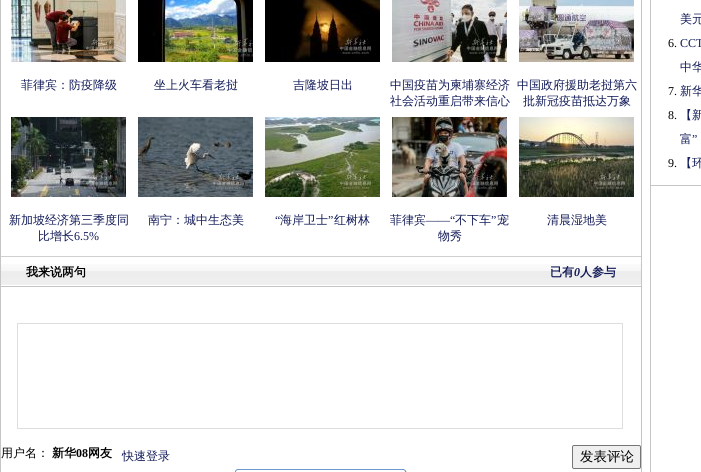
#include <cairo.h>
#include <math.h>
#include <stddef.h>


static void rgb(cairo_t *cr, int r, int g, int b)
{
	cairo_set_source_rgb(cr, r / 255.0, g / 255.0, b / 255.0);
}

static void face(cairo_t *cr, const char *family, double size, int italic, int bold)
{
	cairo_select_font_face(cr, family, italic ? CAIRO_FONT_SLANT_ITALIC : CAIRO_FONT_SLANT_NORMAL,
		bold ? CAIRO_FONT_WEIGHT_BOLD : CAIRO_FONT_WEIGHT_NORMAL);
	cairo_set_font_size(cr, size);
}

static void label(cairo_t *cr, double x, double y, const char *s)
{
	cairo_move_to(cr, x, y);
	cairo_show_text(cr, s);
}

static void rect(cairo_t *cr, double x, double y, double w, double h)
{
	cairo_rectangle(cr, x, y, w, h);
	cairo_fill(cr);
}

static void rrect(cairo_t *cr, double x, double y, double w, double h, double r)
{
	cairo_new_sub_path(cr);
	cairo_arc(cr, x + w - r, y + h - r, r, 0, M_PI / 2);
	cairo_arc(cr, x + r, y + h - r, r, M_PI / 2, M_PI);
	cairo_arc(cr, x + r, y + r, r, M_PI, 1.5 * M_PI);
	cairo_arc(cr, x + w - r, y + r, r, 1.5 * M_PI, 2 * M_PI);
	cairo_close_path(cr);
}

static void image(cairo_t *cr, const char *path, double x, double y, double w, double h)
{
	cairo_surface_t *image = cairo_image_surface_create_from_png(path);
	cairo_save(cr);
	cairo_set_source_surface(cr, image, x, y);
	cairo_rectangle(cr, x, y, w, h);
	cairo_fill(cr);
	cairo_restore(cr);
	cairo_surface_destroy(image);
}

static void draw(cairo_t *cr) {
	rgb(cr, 255, 255, 255);
	cairo_paint(cr);
	image(cr, "image0.png", 0, 0, 651, 472);
	image(cr, "image1.png", 11, 0, 115, 62);
	face(cr, "WenQuanYi Zen Hei Medium", 12, 0, 0);
	rgb(cr, 17, 26, 87);
	label(cr, 21, 89, "菲律宾：防疫降级");
	image(cr, "image2.png", 138, 0, 115, 62);
	label(cr, 154, 89, "坐上火车看老挝");
	image(cr, "image3.png", 265, 0, 115, 62);
	label(cr, 293, 89, "吉隆坡日出");
	image(cr, "image4.png", 392, 0, 115, 62);
	label(cr, 390, 89, "中国疫苗为柬埔寨经济");
	label(cr, 390, 105, "社会活动重启带来信心");
	image(cr, "image5.png", 519, 0, 115, 62);
	label(cr, 517, 89, "中国政府援助老挝第六");
	label(cr, 523, 105, "批新冠疫苗抵达万象");
	image(cr, "image6.png", 11, 117, 115, 80);
	label(cr, 9, 224, "新加坡经济第三季度同");
	label(cr, 38, 240, "比增长");
	face(cr, "Liberation Serif", 12, 0, 0);
	label(cr, 74, 240, "6.5%");
	image(cr, "image7.png", 138, 117, 115, 80);
	face(cr, "WenQuanYi Zen Hei Medium", 12, 0, 0);
	label(cr, 148, 224, "南宁：城中生态美");
	image(cr, "image8.png", 265, 117, 115, 80);
	face(cr, "Liberation Serif", 12, 0, 0);
	label(cr, 275, 224, "“");
	face(cr, "WenQuanYi Zen Hei Medium", 12, 0, 0);
	label(cr, 280, 224, "海岸卫士");
	face(cr, "Liberation Serif", 12, 0, 0);
	label(cr, 328, 224, "”");
	face(cr, "WenQuanYi Zen Hei Medium", 12, 0, 0);
	label(cr, 334, 224, "红树林");
	image(cr, "image9.png", 392, 117, 115, 80);
	label(cr, 390, 224, "菲律宾");
	face(cr, "Liberation Serif", 12, 0, 0);
	label(cr, 426, 224, "——“");
	face(cr, "WenQuanYi Zen Hei Medium", 12, 0, 0);
	label(cr, 455, 224, "不下车");
	face(cr, "Liberation Serif", 12, 0, 0);
	label(cr, 491, 224, "”");
	face(cr, "WenQuanYi Zen Hei Medium", 12, 0, 0);
	label(cr, 497, 224, "宠");
	label(cr, 438, 240, "物秀");
	image(cr, "image10.png", 519, 117, 115, 80);
	label(cr, 547, 224, "清晨湿地美");
	image(cr, "image11.png", 1, 264, 640, 23);
	rgb(cr, 208, 208, 208);
	rect(cr, 1, 256, 640, 1);
	face(cr, "WenQuanYi Zen Hei", 12, 0, 1);
	rgb(cr, 0, 0, 0);
	label(cr, 26, 276, "我来说两句");
	rgb(cr, 17, 26, 87);
	label(cr, 550, 276, "已有");
	face(cr, "Liberation Serif", 12, 1, 1);
	label(cr, 574, 276, "0");
	face(cr, "WenQuanYi Zen Hei", 12, 0, 1);
	label(cr, 580, 276, "人参与");
	cairo_rectangle(cr, 17.5, 323.5, 605, 105);
	rgb(cr, 221, 221, 221);
	cairo_set_line_width(cr, 1);
	cairo_stroke(cr);
	face(cr, "WenQuanYi Zen Hei Medium", 12, 0, 0);
	rgb(cr, 0, 0, 0);
	label(cr, 1, 457, "用户名：");
	face(cr, "WenQuanYi Zen Hei", 12, 0, 1);
	label(cr, 52, 457, "新华");
	face(cr, "Liberation Serif", 12, 0, 1);
	label(cr, 76, 457, "08");
	face(cr, "WenQuanYi Zen Hei", 12, 0, 1);
	label(cr, 88, 457, "网友");
	face(cr, "WenQuanYi Zen Hei Medium", 12, 0, 0);
	rgb(cr, 17, 26, 87);
	label(cr, 122, 460, "快速登录");
	rgb(cr, 239, 239, 239);
	rrect(cr, 572.5, 445.5, 68, 23, 1.5);
	cairo_fill_preserve(cr);
	rgb(cr, 118, 118, 118);
	cairo_stroke(cr);
	face(cr, "WenQuanYi Zen Hei Medium", 13.5, 0, 0);
	rgb(cr, 0, 0, 0);
	label(cr, 580, 461, "发表评论");
	image(cr, "image12.png", 235, 469, 172, 3);
	cairo_rectangle(cr, 650.5, -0.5, 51, 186);
	rgb(cr, 197, 197, 197);
	cairo_stroke(cr);
	face(cr, "WenQuanYi Zen Hei Medium", 12, 0, 0);
	rgb(cr, 17, 26, 87);
	label(cr, 680, 23, "美元");
	face(cr, "Liberation Serif", 12, 0, 0);
	rgb(cr, 0, 0, 0);
	label(cr, 668, 47, "6.");
	rgb(cr, 17, 26, 87);
	label(cr, 680, 47, "CCT");
	face(cr, "WenQuanYi Zen Hei Medium", 12, 0, 0);
	label(cr, 680, 71, "中华");
	face(cr, "Liberation Serif", 12, 0, 0);
	rgb(cr, 0, 0, 0);
	label(cr, 668, 95, "7.");
	face(cr, "WenQuanYi Zen Hei Medium", 12, 0, 0);
	rgb(cr, 17, 26, 87);
	label(cr, 680, 95, "新华");
	face(cr, "Liberation Serif", 12, 0, 0);
	rgb(cr, 0, 0, 0);
	label(cr, 668, 119, "8.");
	face(cr, "WenQuanYi Zen Hei Medium", 12, 0, 0);
	rgb(cr, 17, 26, 87);
	label(cr, 680, 119, "【新");
	label(cr, 680, 143, "富");
	face(cr, "Liberation Serif", 12, 0, 0);
	label(cr, 692, 143, "”");
	rgb(cr, 0, 0, 0);
	label(cr, 668, 167, "9.");
	face(cr, "WenQuanYi Zen Hei Medium", 12, 0, 0);
	rgb(cr, 17, 26, 87);
	label(cr, 680, 167, "【环");
}

int main(void) {
	cairo_surface_t *surface = cairo_image_surface_create(CAIRO_FORMAT_RGB24, 701, 472);
	cairo_t *cr = cairo_create(surface);
	cairo_font_options_t *options = cairo_font_options_create();
	cairo_font_options_set_hint_metrics(options, CAIRO_HINT_METRICS_OFF);
	cairo_font_options_set_hint_style(options, CAIRO_HINT_STYLE_NONE);
	cairo_set_font_options(cr, options);
	cairo_set_miter_limit(cr, 4);
	draw(cr);
	cairo_surface_write_to_png(surface, "render.png");
	cairo_font_options_destroy(options);
	cairo_destroy(cr);
	cairo_surface_destroy(surface);
	return 0;
}
